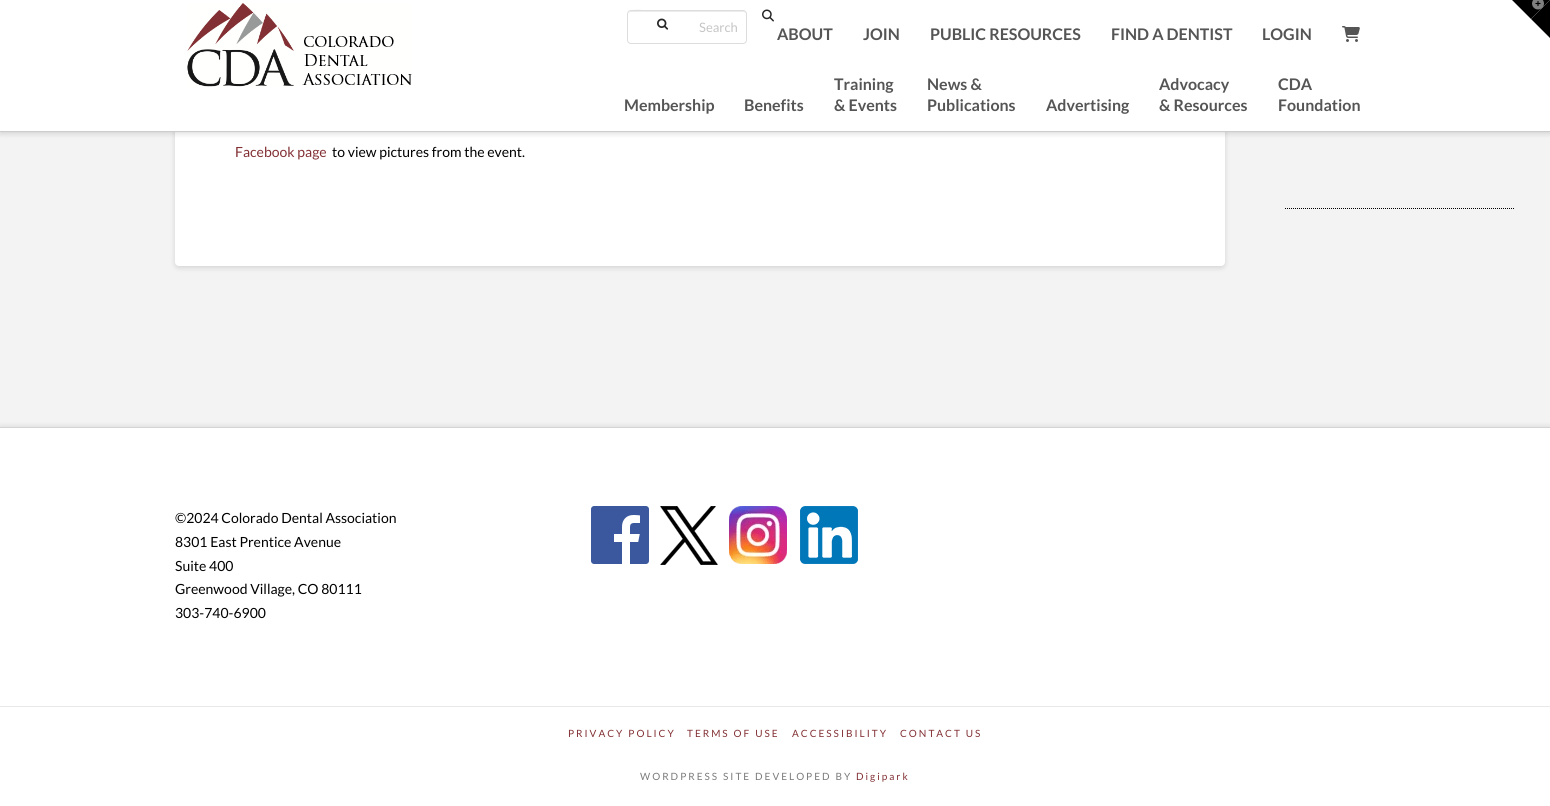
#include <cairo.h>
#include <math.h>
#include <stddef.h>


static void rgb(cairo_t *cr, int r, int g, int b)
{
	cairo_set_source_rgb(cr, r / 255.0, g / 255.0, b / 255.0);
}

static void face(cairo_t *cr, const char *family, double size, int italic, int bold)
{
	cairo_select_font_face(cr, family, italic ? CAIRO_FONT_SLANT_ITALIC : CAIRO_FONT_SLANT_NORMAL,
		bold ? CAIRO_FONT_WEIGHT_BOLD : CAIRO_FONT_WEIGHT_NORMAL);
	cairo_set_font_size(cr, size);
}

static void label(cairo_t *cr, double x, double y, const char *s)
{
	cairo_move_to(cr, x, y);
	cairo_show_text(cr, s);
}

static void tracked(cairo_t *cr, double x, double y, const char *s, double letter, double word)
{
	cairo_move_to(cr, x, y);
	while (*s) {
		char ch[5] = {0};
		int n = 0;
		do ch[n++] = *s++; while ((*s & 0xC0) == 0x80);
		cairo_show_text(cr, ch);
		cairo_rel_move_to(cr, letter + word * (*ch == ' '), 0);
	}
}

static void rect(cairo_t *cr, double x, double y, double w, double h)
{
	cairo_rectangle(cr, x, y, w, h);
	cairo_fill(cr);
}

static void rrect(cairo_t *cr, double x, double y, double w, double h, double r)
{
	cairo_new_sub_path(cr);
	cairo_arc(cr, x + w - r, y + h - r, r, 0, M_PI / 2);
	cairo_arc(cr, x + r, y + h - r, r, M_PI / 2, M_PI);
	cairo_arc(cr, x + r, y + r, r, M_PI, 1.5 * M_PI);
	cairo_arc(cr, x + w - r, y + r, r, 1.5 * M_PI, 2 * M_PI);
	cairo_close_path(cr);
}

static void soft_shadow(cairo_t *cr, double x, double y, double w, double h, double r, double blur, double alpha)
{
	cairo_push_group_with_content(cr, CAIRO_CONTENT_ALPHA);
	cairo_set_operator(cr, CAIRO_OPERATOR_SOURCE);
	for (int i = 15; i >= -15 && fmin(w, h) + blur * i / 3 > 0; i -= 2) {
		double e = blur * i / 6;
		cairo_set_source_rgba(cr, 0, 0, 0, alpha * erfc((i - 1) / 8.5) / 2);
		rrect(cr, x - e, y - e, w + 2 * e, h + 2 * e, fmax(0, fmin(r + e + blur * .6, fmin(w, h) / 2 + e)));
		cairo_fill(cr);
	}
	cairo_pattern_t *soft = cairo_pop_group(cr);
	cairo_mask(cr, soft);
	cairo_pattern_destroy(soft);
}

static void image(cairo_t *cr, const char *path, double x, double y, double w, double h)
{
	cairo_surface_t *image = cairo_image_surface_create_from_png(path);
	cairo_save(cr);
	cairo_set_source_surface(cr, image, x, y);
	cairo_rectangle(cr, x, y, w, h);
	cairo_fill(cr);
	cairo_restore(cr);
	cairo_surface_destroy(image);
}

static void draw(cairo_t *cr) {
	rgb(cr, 243, 243, 243);
	cairo_paint(cr);
	rgb(cr, 0, 0, 0);
	soft_shadow(cr, 175, -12, 1050, 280, 4, 2.5, 0.13);
	rgb(cr, 255, 255, 255);
	rrect(cr, 175, -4, 1050, 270, 4);
	cairo_fill(cr);
	rgb(cr, 0, 0, 0);
	soft_shadow(cr, 0, 2, 1550, 132, 0, 2.5, 0.13);
	rgb(cr, 255, 255, 255);
	rect(cr, 0, 0, 1550, 131);
	rgb(cr, 204, 204, 204);
	rect(cr, 0, 131, 1550, 1);
	image(cr, "image0.png", 187, 3, 225, 84);
	image(cr, "image1.png", 762, 9, 12, 13);
	rgb(cr, 236, 236, 236);
	cairo_new_path(cr);
	cairo_move_to(cr, 631, 12);
	cairo_line_to(cr, 743, 12);
	cairo_curve_to(cr, 745, 12, 746, 13, 746, 15);
	cairo_curve_to(cr, 746, 13, 745, 11, 743, 11);
	cairo_line_to(cr, 650, 11);
	cairo_curve_to(cr, 648, 11, 628, 6, 628, 15);
	cairo_curve_to(cr, 628, 13, 629, 12, 631, 12);
	cairo_close_path(cr);
	cairo_fill(cr);
	rrect(cr, 627.5, 10.5, 119, 33, 3.5);
	rgb(cr, 221, 221, 221);
	cairo_set_line_width(cr, 1);
	cairo_stroke(cr);
	image(cr, "image2.png", 657, 18, 12, 12);
	face(cr, "Lato", 13, 0, 0);
	rgb(cr, 197, 197, 197);
	label(cr, 699, 32, "Search");
	face(cr, "Lato", 16, 0, 1);
	rgb(cr, 85, 85, 85);
	label(cr, 777, 40, "ABOUT");
	label(cr, 863, 40, "JOIN");
	label(cr, 930, 40, "PUBLIC RESOURCES");
	label(cr, 1111, 40, "FIND A DENTIST");
	label(cr, 1262, 40, "LOGIN");
	image(cr, "image3.png", 1342, 26, 18, 16);
	label(cr, 624, 111, "Membership");
	label(cr, 744, 111, "Benefits");
	label(cr, 834, 90, "Training");
	label(cr, 834, 111, "& Events");
	label(cr, 927, 90, "News &");
	label(cr, 927, 111, "Publications");
	label(cr, 1046, 111, "Advertising");
	label(cr, 1159, 90, "Advocacy");
	label(cr, 1159, 111, "& Resources");
	label(cr, 1278, 90, "CDA");
	label(cr, 1278, 111, "Foundation");
	face(cr, "Lato", 14, 0, 0);
	rgb(cr, 130, 48, 52);
	label(cr, 235, 157, "Facebook page");
	rgb(cr, 0, 0, 0);
	label(cr, 332, 157, "to view pictures from the event.");
	cairo_new_path(cr);
	cairo_move_to(cr, 1285, 208.5);
	cairo_line_to(cr, 1515, 208.5);
	cairo_set_dash(cr, (double[]){1, 1}, 2, 0);
	cairo_stroke(cr);
	rgb(cr, 0, 0, 0);
	soft_shadow(cr, 0, 425, 1550, 279, 0, 2, 0.07);
	rgb(cr, 255, 255, 255);
	rect(cr, 0, 428, 1550, 278);
	rgb(cr, 212, 212, 212);
	rect(cr, 0, 427, 1550, 1);
	rgb(cr, 0, 0, 0);
	label(cr, 175, 523, "©2024 Colorado Dental Association");
	label(cr, 175, 547, "8301 East Prentice Avenue");
	label(cr, 175, 571, "Suite 400");
	label(cr, 175, 594, "Greenwood Village, CO 80111");
	label(cr, 175, 618, "303-740-6900");
	image(cr, "image4.png", 591, 506, 58, 58);
	image(cr, "image5.png", 660, 506, 58, 59);
	image(cr, "image6.png", 729, 506, 58, 58);
	image(cr, "image7.png", 800, 506, 58, 58);
	rgb(cr, 255, 255, 255);
	rect(cr, 0, 707, 1550, 99);
	rgb(cr, 233, 233, 233);
	rect(cr, 0, 706, 1550, 1);
	face(cr, "Lato", 10, 0, 0);
	rgb(cr, 130, 48, 52);
	tracked(cr, 568, 737, "PRIVACY POLICY", 2, 0);
	tracked(cr, 687, 737, "TERMS OF USE", 2, 0);
	tracked(cr, 792, 737, "ACCESSIBILITY", 2, 0);
	tracked(cr, 900, 737, "CONTACT US", 2, 0);
	rgb(cr, 122, 122, 122);
	tracked(cr, 640, 780, "WORDPRESS SITE DEVELOPED BY", 2, 0);
	rgb(cr, 130, 48, 52);
	tracked(cr, 856, 780, "Digipark", 2, 0);
	rgb(cr, 0, 0, 0);
	cairo_new_path(cr);
	cairo_move_to(cr, 1512, 0);
	cairo_line_to(cr, 1550, 0);
	cairo_line_to(cr, 1531, 19);
	cairo_close_path(cr);
	cairo_fill(cr);
	cairo_new_path(cr);
	cairo_move_to(cr, 1550, 0);
	cairo_line_to(cr, 1550, 38);
	cairo_line_to(cr, 1531, 19);
	cairo_close_path(cr);
	cairo_fill(cr);
	image(cr, "image8.png", 1532, 0, 12, 10);
}

int main(void) {
	cairo_surface_t *surface = cairo_image_surface_create(CAIRO_FORMAT_RGB24, 1550, 806);
	cairo_t *cr = cairo_create(surface);
	cairo_font_options_t *options = cairo_font_options_create();
	cairo_font_options_set_hint_metrics(options, CAIRO_HINT_METRICS_OFF);
	cairo_font_options_set_hint_style(options, CAIRO_HINT_STYLE_NONE);
	cairo_set_font_options(cr, options);
	cairo_set_miter_limit(cr, 4);
	draw(cr);
	cairo_surface_write_to_png(surface, "render.png");
	cairo_font_options_destroy(options);
	cairo_destroy(cr);
	cairo_surface_destroy(surface);
	return 0;
}
